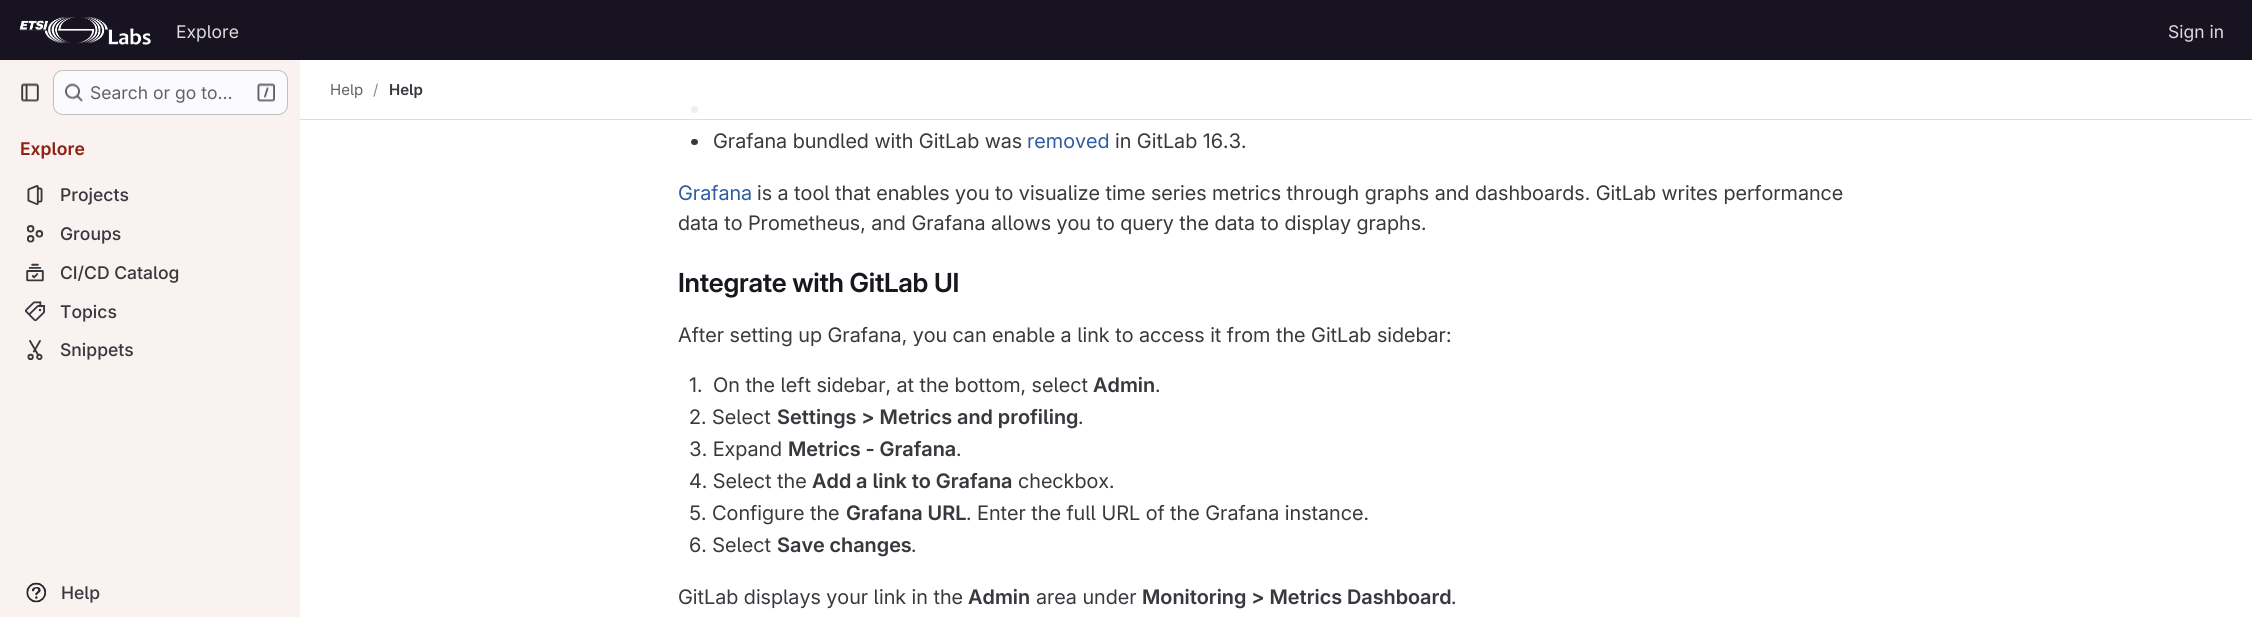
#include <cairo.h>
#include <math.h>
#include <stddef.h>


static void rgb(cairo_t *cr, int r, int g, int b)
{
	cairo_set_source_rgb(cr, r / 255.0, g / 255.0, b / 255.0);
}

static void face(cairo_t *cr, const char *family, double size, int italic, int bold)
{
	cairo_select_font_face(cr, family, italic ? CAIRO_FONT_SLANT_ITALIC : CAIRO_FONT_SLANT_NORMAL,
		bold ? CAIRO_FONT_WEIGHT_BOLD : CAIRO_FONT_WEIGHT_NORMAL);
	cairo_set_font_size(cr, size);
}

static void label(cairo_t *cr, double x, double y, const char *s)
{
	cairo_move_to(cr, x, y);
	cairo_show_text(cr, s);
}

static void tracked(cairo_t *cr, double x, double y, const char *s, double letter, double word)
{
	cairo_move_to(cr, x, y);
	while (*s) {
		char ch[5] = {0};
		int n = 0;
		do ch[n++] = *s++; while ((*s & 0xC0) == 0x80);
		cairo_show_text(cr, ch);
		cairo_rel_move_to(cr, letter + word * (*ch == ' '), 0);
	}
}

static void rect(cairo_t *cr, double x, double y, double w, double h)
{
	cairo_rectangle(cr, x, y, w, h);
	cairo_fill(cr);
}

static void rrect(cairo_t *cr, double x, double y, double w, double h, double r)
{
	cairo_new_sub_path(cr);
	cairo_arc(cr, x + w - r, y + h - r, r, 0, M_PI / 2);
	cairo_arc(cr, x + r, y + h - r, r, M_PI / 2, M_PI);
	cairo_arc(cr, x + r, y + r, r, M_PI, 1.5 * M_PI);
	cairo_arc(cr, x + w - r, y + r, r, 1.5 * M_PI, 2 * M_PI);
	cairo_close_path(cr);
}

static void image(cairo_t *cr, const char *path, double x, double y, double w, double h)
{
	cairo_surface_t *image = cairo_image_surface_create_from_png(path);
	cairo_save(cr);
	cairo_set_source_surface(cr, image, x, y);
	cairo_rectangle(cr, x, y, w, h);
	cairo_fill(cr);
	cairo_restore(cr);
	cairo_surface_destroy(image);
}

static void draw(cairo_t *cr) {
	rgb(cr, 255, 255, 255);
	cairo_paint(cr);
	rgb(cr, 23, 19, 33);
	rect(cr, 0, 0, 2252, 60);
	image(cr, "image0.png", 19, 16, 132, 29);
	face(cr, "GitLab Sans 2", 17.5, 0, 0);
	rgb(cr, 220, 220, 222);
	label(cr, 176, 38, "Explore");
	label(cr, 2168, 38, "Sign in");
	rgb(cr, 250, 242, 241);
	rect(cr, 0, 60, 300, 557);
	image(cr, "image1.png", 21, 83, 18, 19);
	rgb(cr, 251, 250, 253);
	rrect(cr, 53, 70, 235, 45, 10);
	cairo_fill(cr);
	rrect(cr, 53.5, 70.5, 234, 44, 9.5);
	cairo_set_source_rgba(cr, 0.02, 0.02, 0.024, 0.24);
	cairo_set_line_width(cr, 1);
	cairo_stroke(cr);
	image(cr, "image2.png", 65, 83, 18, 19);
	rgb(cr, 98, 97, 104);
	label(cr, 90, 99, "Search or go to…");
	image(cr, "image3.png", 257, 83, 18, 19);
	face(cr, "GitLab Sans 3 SemiBold", 17.5, 0, 0);
	rgb(cr, 139, 34, 18);
	label(cr, 20, 155, "Explore");
	image(cr, "image4.png", 27, 185, 16, 20);
	face(cr, "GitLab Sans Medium", 17.5, 0, 0);
	rgb(cr, 58, 56, 63);
	label(cr, 60, 201, "Projects");
	image(cr, "image5.png", 26, 225, 18, 18);
	label(cr, 60, 240, "Groups");
	image(cr, "image6.png", 26, 263, 18, 19);
	label(cr, 60, 279, "CI/CD Catalog");
	image(cr, "image7.png", 25, 301, 20, 21);
	label(cr, 60, 318, "Topics");
	image(cr, "image8.png", 27, 340, 16, 20);
	label(cr, 60, 356, "Snippets");
	image(cr, "image9.png", 26, 582, 21, 21);
	label(cr, 61, 599, "Help");
	cairo_new_path(cr);
	cairo_arc(cr, 694.5, 109.5, 3.5, 0, 2 * M_PI);
	cairo_fill(cr);
	cairo_set_source_rgba(cr, 1, 1, 1, 0.92);
	rect(cr, 691, 106, 7, 7);
	rgb(cr, 220, 220, 222);
	rect(cr, 300, 119, 1952, 1);
	face(cr, "GitLab Sans 2", 15, 0, 0);
	rgb(cr, 98, 97, 104);
	label(cr, 330, 95, "Help");
	rgb(cr, 137, 136, 141);
	label(cr, 373, 95, "/");
	face(cr, "GitLab Sans 3 SemiBold", 15, 0, 0);
	rgb(cr, 58, 56, 63);
	label(cr, 389, 95, "Help");
	rrect(cr, 691, 139, 7, 6, 3);
	cairo_fill(cr);
	face(cr, "GitLab Sans", 20, 0, 0);
	label(cr, 713, 148, "Grafana bundled with GitLab was");
	rgb(cr, 47, 92, 160);
	label(cr, 1027, 148, "removed");
	rgb(cr, 58, 56, 63);
	label(cr, 1115, 148, "in GitLab 16.3.");
	rgb(cr, 47, 92, 160);
	label(cr, 678, 200, "Grafana");
	rgb(cr, 58, 56, 63);
	label(cr, 757, 200, "is a tool that enables you to visualize time series metrics through graphs and dashboards. GitLab writes performance");
	label(cr, 678, 230, "data to Prometheus, and Grafana allows you to query the data to display graphs.");
	face(cr, "GitLab Sans SemiBold", 26.25, 0, 0);
	rgb(cr, 24, 23, 29);
	tracked(cr, 678, 292, "Integrate with GitLab UI", -0.25, 0);
	face(cr, "GitLab Sans", 20, 0, 0);
	rgb(cr, 58, 56, 63);
	label(cr, 678, 342, "After setting up Grafana, you can enable a link to access it from the GitLab sidebar:");
	label(cr, 689, 392, "1.");
	label(cr, 713, 392, "On the left sidebar, at the bottom, select");
	face(cr, "GitLab Sans 2 SemiBold", 20, 0, 0);
	label(cr, 1093, 392, "Admin");
	face(cr, "GitLab Sans", 20, 0, 0);
	label(cr, 1155, 392, ".");
	label(cr, 689, 424, "2. Select");
	face(cr, "GitLab Sans 2 SemiBold", 20, 0, 0);
	label(cr, 777, 424, "Settings > Metrics and profiling");
	face(cr, "GitLab Sans", 20, 0, 0);
	label(cr, 1078, 424, ".");
	label(cr, 689, 456, "3. Expand");
	face(cr, "GitLab Sans 2 SemiBold", 20, 0, 0);
	label(cr, 788, 456, "Metrics - Grafana");
	face(cr, "GitLab Sans", 20, 0, 0);
	label(cr, 956, 456, ".");
	label(cr, 689, 488, "4. Select the");
	face(cr, "GitLab Sans 2 SemiBold", 20, 0, 0);
	label(cr, 812, 488, "Add a link to Grafana");
	face(cr, "GitLab Sans", 20, 0, 0);
	label(cr, 1018, 488, "checkbox.");
	label(cr, 689, 520, "5. Configure the");
	face(cr, "GitLab Sans 2 SemiBold", 20, 0, 0);
	label(cr, 846, 520, "Grafana URL");
	face(cr, "GitLab Sans", 20, 0, 0);
	label(cr, 966, 520, ". Enter the full URL of the Grafana instance.");
	label(cr, 689, 552, "6. Select");
	face(cr, "GitLab Sans 2 SemiBold", 20, 0, 0);
	label(cr, 777, 552, "Save changes");
	face(cr, "GitLab Sans", 20, 0, 0);
	label(cr, 911, 552, ".");
	label(cr, 678, 604, "GitLab displays your link in the");
	face(cr, "GitLab Sans 2 SemiBold", 20, 0, 0);
	label(cr, 968, 604, "Admin");
	face(cr, "GitLab Sans", 20, 0, 0);
	label(cr, 1036, 604, "area under");
	face(cr, "GitLab Sans 2 SemiBold", 20, 0, 0);
	label(cr, 1142, 604, "Monitoring > Metrics Dashboard");
	face(cr, "GitLab Sans", 20, 0, 0);
	label(cr, 1451, 604, ".");
}

int main(void) {
	cairo_surface_t *surface = cairo_image_surface_create(CAIRO_FORMAT_RGB24, 2252, 617);
	cairo_t *cr = cairo_create(surface);
	cairo_font_options_t *options = cairo_font_options_create();
	cairo_font_options_set_hint_metrics(options, CAIRO_HINT_METRICS_OFF);
	cairo_font_options_set_hint_style(options, CAIRO_HINT_STYLE_NONE);
	cairo_set_font_options(cr, options);
	cairo_set_miter_limit(cr, 4);
	draw(cr);
	cairo_surface_write_to_png(surface, "render.png");
	cairo_font_options_destroy(options);
	cairo_destroy(cr);
	cairo_surface_destroy(surface);
	return 0;
}
